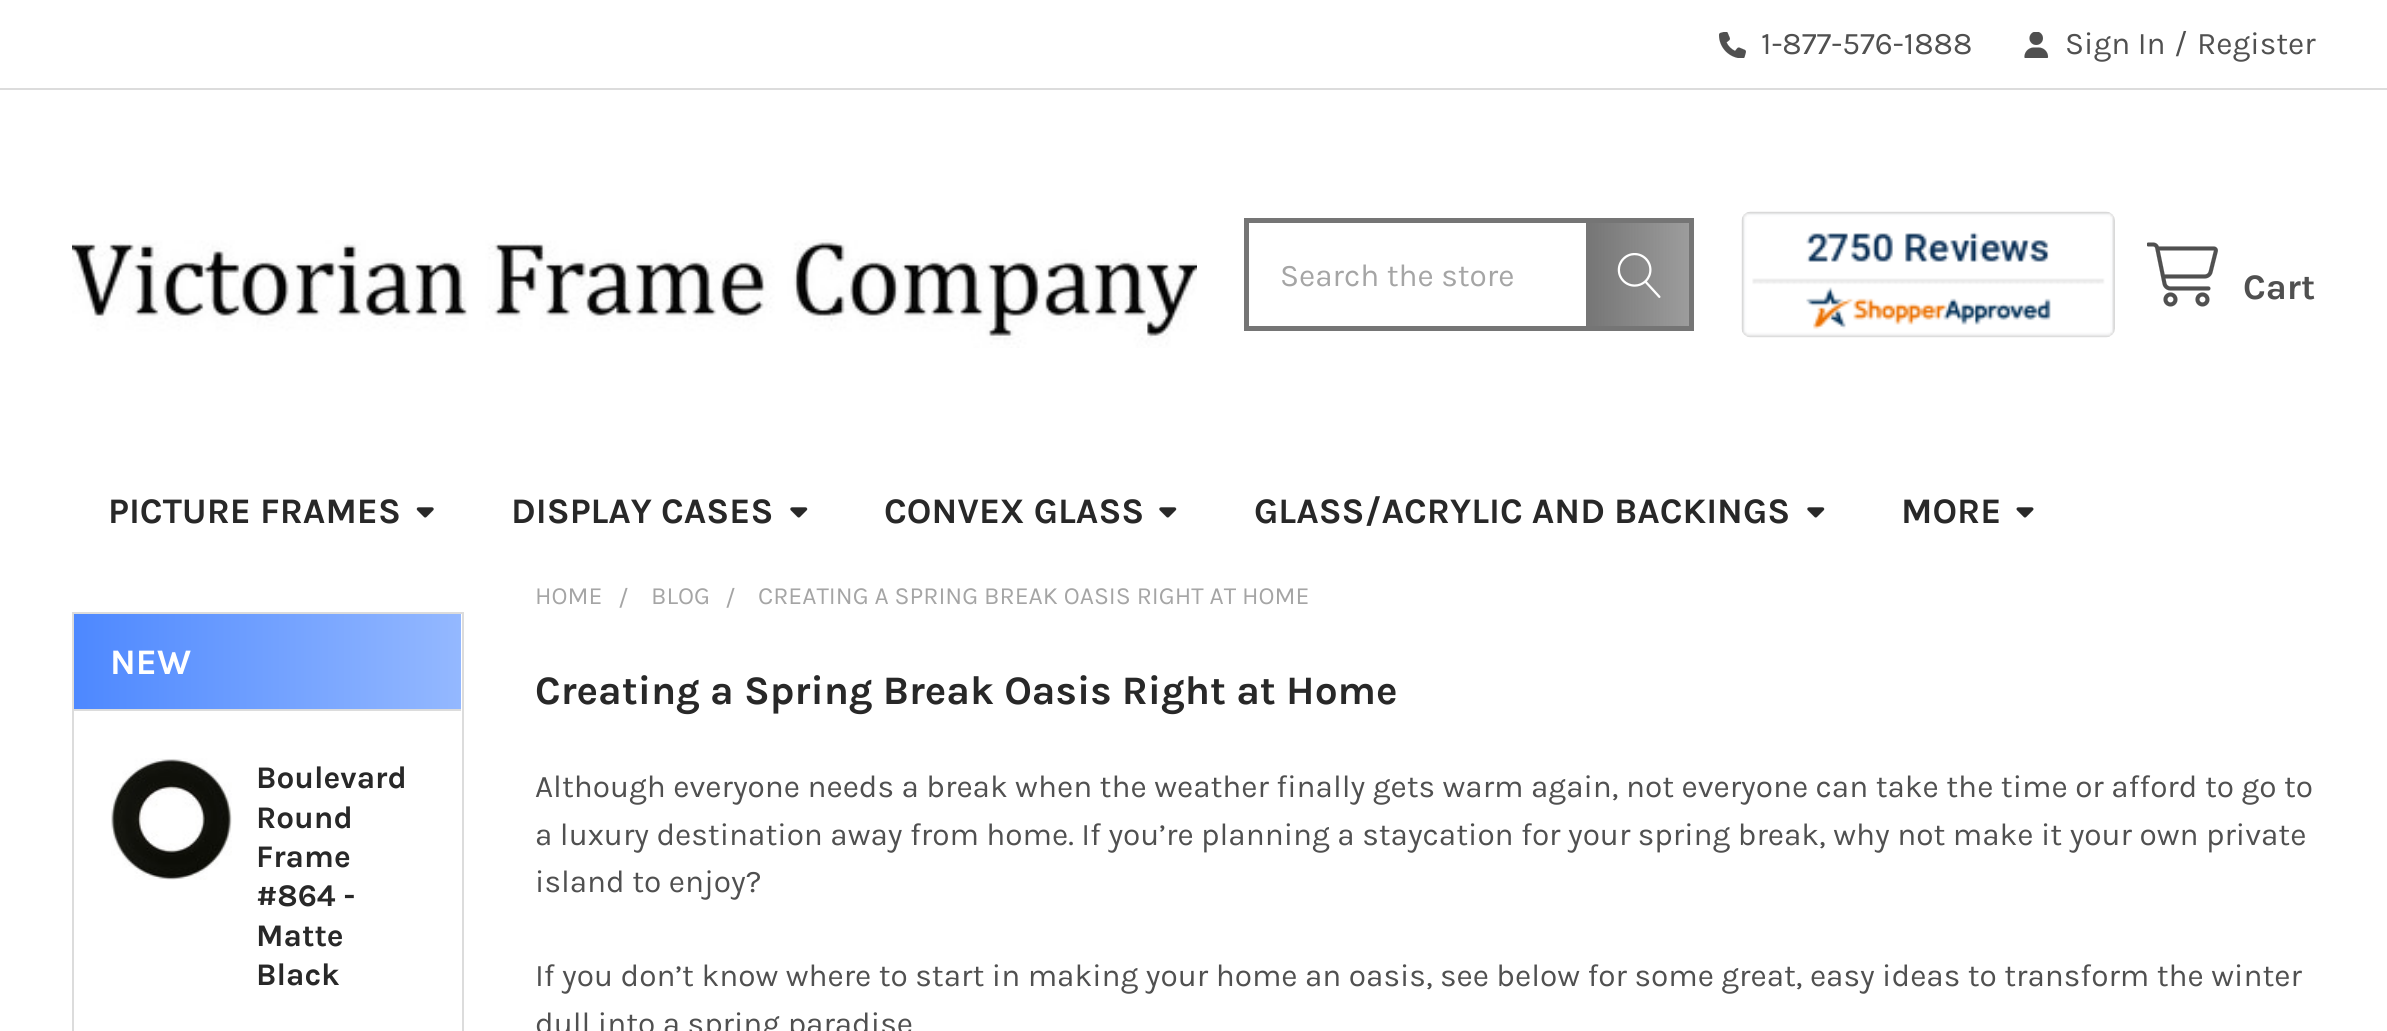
#include <cairo.h>
#include <math.h>
#include <stddef.h>


static void rgb(cairo_t *cr, int r, int g, int b)
{
	cairo_set_source_rgb(cr, r / 255.0, g / 255.0, b / 255.0);
}

static void face(cairo_t *cr, const char *family, double size, int italic, int bold)
{
	cairo_select_font_face(cr, family, italic ? CAIRO_FONT_SLANT_ITALIC : CAIRO_FONT_SLANT_NORMAL,
		bold ? CAIRO_FONT_WEIGHT_BOLD : CAIRO_FONT_WEIGHT_NORMAL);
	cairo_set_font_size(cr, size);
}

static void label(cairo_t *cr, double x, double y, const char *s)
{
	cairo_move_to(cr, x, y);
	cairo_show_text(cr, s);
}

static void rect(cairo_t *cr, double x, double y, double w, double h)
{
	cairo_rectangle(cr, x, y, w, h);
	cairo_fill(cr);
}

static void image(cairo_t *cr, const char *path, double x, double y, double w, double h)
{
	cairo_surface_t *image = cairo_image_surface_create_from_png(path);
	cairo_save(cr);
	cairo_set_source_surface(cr, image, x, y);
	cairo_rectangle(cr, x, y, w, h);
	cairo_fill(cr);
	cairo_restore(cr);
	cairo_surface_destroy(image);
}

static void draw(cairo_t *cr) {
	cairo_pattern_t *gradient;
	rgb(cr, 255, 255, 255);
	cairo_paint(cr);
	rgb(cr, 220, 220, 220);
	rect(cr, 0, 88, 2387, 2);
	image(cr, "image0.png", 1719, 32, 27, 26);
	face(cr, "Karla", 31.5, 0, 0);
	rgb(cr, 80, 80, 80);
	label(cr, 1761, 54, "1-877-576-1888");
	image(cr, "image1.png", 2024, 32, 25, 26);
	label(cr, 2065, 54, "Sign In");
	label(cr, 2174, 54, "/");
	label(cr, 2197, 54, "Register");
	image(cr, "image2.png", 72, 239, 1125, 109);
	cairo_rectangle(cr, 1246.5, 220.5, 445, 108);
	rgb(cr, 117, 117, 117);
	cairo_set_line_width(cr, 5);
	cairo_stroke(cr);
	rgb(cr, 165, 165, 165);
	label(cr, 1280, 286, "Search the store");
	gradient = cairo_pattern_create_linear(1586, 275, 1694, 275);
	cairo_pattern_add_color_stop_rgba(gradient, 0, 0.459, 0.459, 0.459, 1);
	cairo_pattern_add_color_stop_rgba(gradient, 1, 0.459, 0.459, 0.459, 0.7);
	cairo_set_source(cr, gradient);
	cairo_pattern_destroy(gradient);
	rect(cr, 1586, 223, 103, 103);
	image(cr, "image3.png", 1617, 253, 44, 45);
	image(cr, "image4.png", 1741, 211, 374, 127);
	image(cr, "image5.png", 2147, 242, 71, 65);
	face(cr, "Karla", 36, 0, 1);
	rgb(cr, 80, 80, 80);
	label(cr, 2243, 299, "Cart");
	rgb(cr, 40, 40, 40);
	label(cr, 108, 523, "PICTURE FRAMES");
	image(cr, "image6.png", 416, 507, 18, 11);
	label(cr, 511, 523, "DISPLAY CASES");
	image(cr, "image7.png", 790, 507, 18, 11);
	label(cr, 884, 523, "CONVEX GLASS");
	image(cr, "image7.png", 1159, 507, 18, 11);
	label(cr, 1254, 523, "GLASS/ACRYLIC AND BACKINGS");
	image(cr, "image7.png", 1807, 507, 18, 11);
	label(cr, 1901, 523, "MORE");
	image(cr, "image8.png", 2016, 507, 18, 11);
	cairo_rectangle(cr, 73, 613, 390, 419);
	rgb(cr, 220, 220, 220);
	cairo_set_line_width(cr, 2);
	cairo_stroke(cr);
	gradient = cairo_pattern_create_linear(74, 662, 461, 662);
	cairo_pattern_add_color_stop_rgba(gradient, 0, 0.302, 0.533, 1, 1);
	cairo_pattern_add_color_stop_rgba(gradient, 1, 0.58, 0.722, 1, 1);
	cairo_set_source(cr, gradient);
	cairo_pattern_destroy(gradient);
	rect(cr, 74, 614, 387, 95);
	rgb(cr, 220, 220, 220);
	rect(cr, 74, 709, 387, 2);
	rgb(cr, 255, 255, 255);
	label(cr, 110, 674, "NEW");
	image(cr, "image9.png", 111, 758, 121, 122);
	face(cr, "Karla", 31.5, 0, 1);
	rgb(cr, 40, 40, 40);
	label(cr, 256, 788, "Boulevard");
	label(cr, 256, 828, "Round");
	label(cr, 256, 867, "Frame");
	label(cr, 256, 906, "#864 -");
	label(cr, 256, 946, "Matte");
	label(cr, 256, 985, "Black");
	face(cr, "Karla", 24.75, 0, 0);
	rgb(cr, 165, 165, 165);
	label(cr, 535, 604, "HOME");
	label(cr, 618, 606, "/");
	label(cr, 651, 604, "BLOG");
	label(cr, 725, 606, "/");
	label(cr, 758, 604, "CREATING A SPRING BREAK OASIS RIGHT AT HOME");
	face(cr, "Karla", 40.5, 0, 1);
	rgb(cr, 40, 40, 40);
	label(cr, 535, 704, "Creating a Spring Break Oasis Right at Home");
	face(cr, "Karla", 31.5, 0, 0);
	rgb(cr, 80, 80, 80);
	label(cr, 535, 797, "Although everyone needs a break when the weather finally gets warm again, not everyone can take the time or afford to go to");
	label(cr, 535, 845, "a luxury destination away from home. If you’re planning a staycation for your spring break, why not make it your own private");
	label(cr, 535, 892, "island to enjoy?");
	label(cr, 535, 986, "If you don’t know where to start in making your home an oasis, see below for some great, easy ideas to transform the winter");
	label(cr, 535, 1034, "dull into a spring paradise");
}

int main(void) {
	cairo_surface_t *surface = cairo_image_surface_create(CAIRO_FORMAT_RGB24, 2387, 1031);
	cairo_t *cr = cairo_create(surface);
	cairo_font_options_t *options = cairo_font_options_create();
	cairo_font_options_set_hint_metrics(options, CAIRO_HINT_METRICS_OFF);
	cairo_font_options_set_hint_style(options, CAIRO_HINT_STYLE_NONE);
	cairo_set_font_options(cr, options);
	cairo_set_miter_limit(cr, 4);
	draw(cr);
	cairo_surface_write_to_png(surface, "render.png");
	cairo_font_options_destroy(options);
	cairo_destroy(cr);
	cairo_surface_destroy(surface);
	return 0;
}
